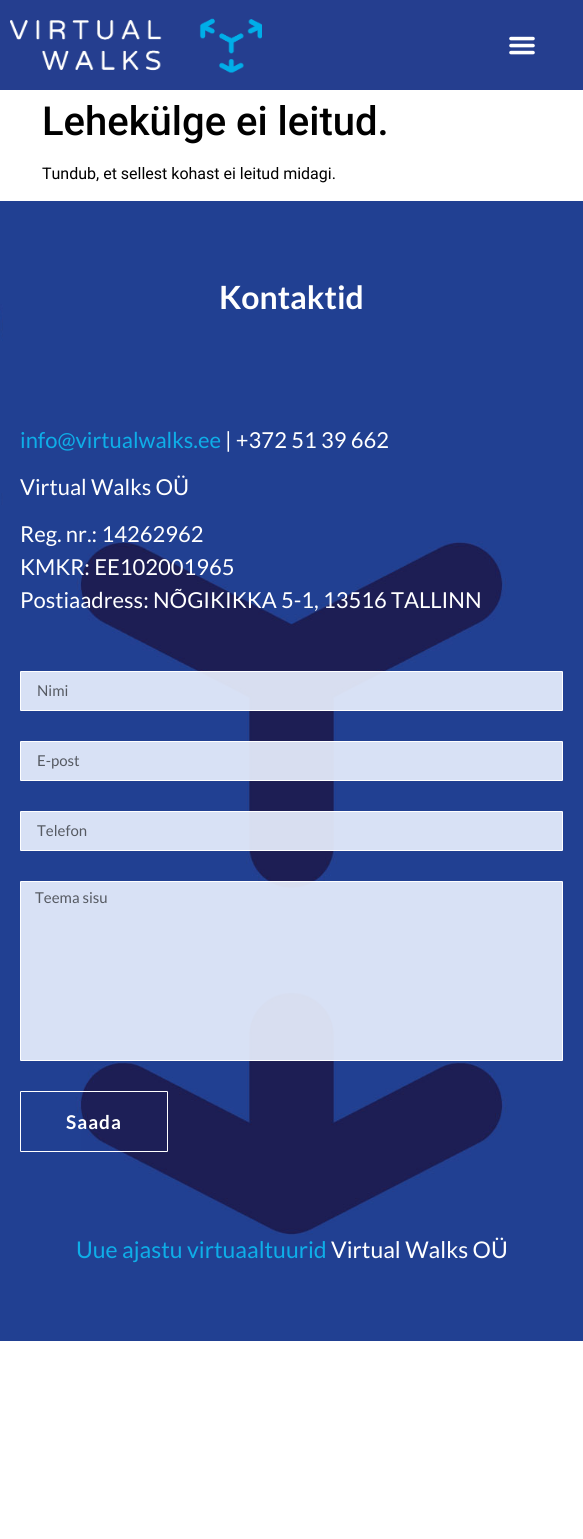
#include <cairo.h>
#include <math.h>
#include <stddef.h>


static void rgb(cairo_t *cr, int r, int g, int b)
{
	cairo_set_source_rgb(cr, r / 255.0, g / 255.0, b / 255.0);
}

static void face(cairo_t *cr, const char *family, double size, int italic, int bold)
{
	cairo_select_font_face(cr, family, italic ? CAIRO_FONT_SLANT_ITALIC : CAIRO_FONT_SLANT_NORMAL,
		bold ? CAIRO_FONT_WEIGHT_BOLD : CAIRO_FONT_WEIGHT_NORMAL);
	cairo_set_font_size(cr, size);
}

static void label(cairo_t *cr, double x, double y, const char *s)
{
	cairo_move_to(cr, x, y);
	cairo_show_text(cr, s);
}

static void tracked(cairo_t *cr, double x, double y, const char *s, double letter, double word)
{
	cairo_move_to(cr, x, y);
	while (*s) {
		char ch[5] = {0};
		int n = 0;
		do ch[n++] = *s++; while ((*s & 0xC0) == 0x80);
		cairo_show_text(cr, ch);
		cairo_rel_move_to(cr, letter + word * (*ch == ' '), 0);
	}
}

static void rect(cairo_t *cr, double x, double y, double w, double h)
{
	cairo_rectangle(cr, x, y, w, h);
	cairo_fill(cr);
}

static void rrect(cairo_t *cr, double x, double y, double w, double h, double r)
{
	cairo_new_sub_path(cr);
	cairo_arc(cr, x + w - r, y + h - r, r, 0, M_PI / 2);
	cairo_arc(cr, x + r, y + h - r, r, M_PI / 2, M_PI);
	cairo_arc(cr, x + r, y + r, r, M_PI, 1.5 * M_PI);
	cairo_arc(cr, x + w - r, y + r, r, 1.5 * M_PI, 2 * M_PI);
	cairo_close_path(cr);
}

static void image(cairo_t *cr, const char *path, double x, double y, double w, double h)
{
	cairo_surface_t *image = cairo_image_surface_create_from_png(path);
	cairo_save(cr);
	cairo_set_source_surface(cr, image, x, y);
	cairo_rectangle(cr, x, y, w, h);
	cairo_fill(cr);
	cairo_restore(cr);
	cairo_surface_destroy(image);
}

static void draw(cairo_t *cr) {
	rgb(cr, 255, 255, 255);
	cairo_paint(cr);
	rgb(cr, 37, 62, 143);
	rect(cr, 0, 0, 583, 90);
	image(cr, "image0.png", 10, 18, 252, 55);
	image(cr, "image1.png", 509, 36, 26, 19);
	face(cr, "Roboto Medium", 40, 0, 0);
	rgb(cr, 0, 0, 0);
	label(cr, 42, 135, "Lehekülge ei leitud.");
	face(cr, "Roboto", 16, 0, 0);
	label(cr, 42, 179, "Tundub, et sellest kohast ei leitud midagi.");
	image(cr, "image2.png", 0, 201, 583, 1140);
	face(cr, "Lato", 32, 0, 1);
	rgb(cr, 255, 255, 255);
	label(cr, 219, 309, "Kontaktid");
	face(cr, "Lato", 22, 0, 0);
	rgb(cr, 14, 174, 232);
	label(cr, 20, 448, "info@virtualwalks.ee");
	rgb(cr, 255, 255, 255);
	label(cr, 225, 448, "| +372 51 39 662");
	label(cr, 20, 495, "Virtual Walks OÜ");
	label(cr, 20, 542, "Reg. nr.: 14262962");
	label(cr, 20, 575, "KMKR: EE102001965");
	label(cr, 20, 608, "Postiaadress: NÕGIKIKKA 5-1, 13516 TALLINN");
	cairo_set_source_rgba(cr, 0.918, 0.941, 1, 0.91);
	rrect(cr, 20.5, 671.5, 542, 39, 0.5);
	cairo_fill_preserve(cr);
	rgb(cr, 255, 255, 255);
	cairo_set_line_width(cr, 1);
	cairo_stroke(cr);
	face(cr, "Lato", 15, 0, 0);
	rgb(cr, 86, 90, 98);
	label(cr, 37, 696, "Nimi");
	cairo_set_source_rgba(cr, 0.918, 0.941, 1, 0.91);
	rrect(cr, 20.5, 741.5, 542, 39, 0.5);
	cairo_fill_preserve(cr);
	rgb(cr, 255, 255, 255);
	cairo_stroke(cr);
	rgb(cr, 86, 90, 98);
	label(cr, 37, 766, "E-post");
	cairo_set_source_rgba(cr, 0.918, 0.941, 1, 0.91);
	rrect(cr, 20.5, 811.5, 542, 39, 0.5);
	cairo_fill_preserve(cr);
	rgb(cr, 255, 255, 255);
	cairo_stroke(cr);
	rgb(cr, 86, 90, 98);
	label(cr, 37, 836, "Telefon");
	cairo_set_source_rgba(cr, 0.918, 0.941, 1, 0.91);
	rrect(cr, 20.5, 881.5, 542, 179, 0.5);
	cairo_fill_preserve(cr);
	rgb(cr, 255, 255, 255);
	cairo_stroke(cr);
	rgb(cr, 86, 90, 98);
	label(cr, 35, 903, "Teema sisu");
	cairo_set_source_rgba(cr, 0.145, 0.243, 0.561, 0.06);
	rect(cr, 81, 1091, 87, 61);
	rrect(cr, 20.5, 1091.5, 147, 60, 0.5);
	rgb(cr, 255, 255, 255);
	cairo_stroke(cr);
	face(cr, "Lato", 19, 0, 1);
	tracked(cr, 66, 1129, "Saada", 1, 0);
	face(cr, "Lato", 23, 0, 0);
	rgb(cr, 14, 174, 232);
	label(cr, 76, 1258, "Uue ajastu virtuaaltuurid");
	rgb(cr, 255, 255, 255);
	label(cr, 331, 1258, "Virtual Walks OÜ");
}

int main(void) {
	cairo_surface_t *surface = cairo_image_surface_create(CAIRO_FORMAT_RGB24, 583, 1539);
	cairo_t *cr = cairo_create(surface);
	cairo_font_options_t *options = cairo_font_options_create();
	cairo_font_options_set_hint_metrics(options, CAIRO_HINT_METRICS_OFF);
	cairo_font_options_set_hint_style(options, CAIRO_HINT_STYLE_NONE);
	cairo_set_font_options(cr, options);
	cairo_set_miter_limit(cr, 4);
	draw(cr);
	cairo_surface_write_to_png(surface, "render.png");
	cairo_font_options_destroy(options);
	cairo_destroy(cr);
	cairo_surface_destroy(surface);
	return 0;
}
